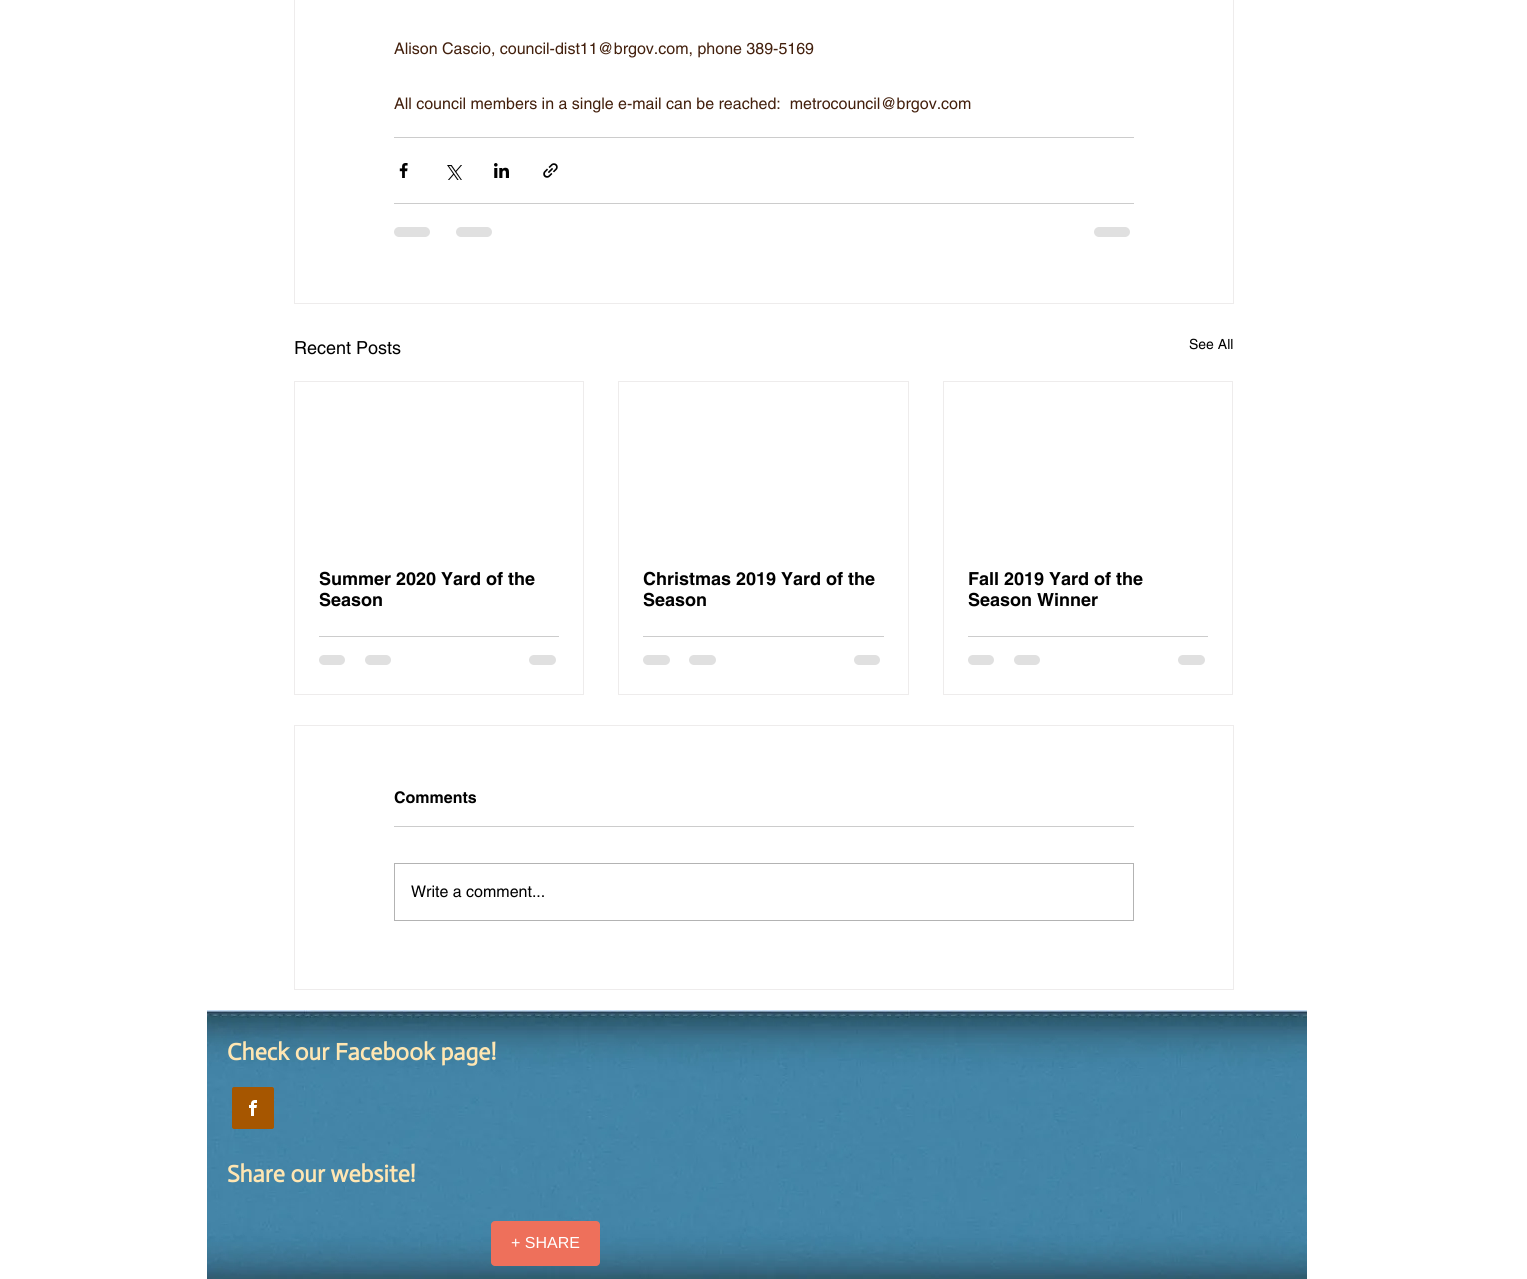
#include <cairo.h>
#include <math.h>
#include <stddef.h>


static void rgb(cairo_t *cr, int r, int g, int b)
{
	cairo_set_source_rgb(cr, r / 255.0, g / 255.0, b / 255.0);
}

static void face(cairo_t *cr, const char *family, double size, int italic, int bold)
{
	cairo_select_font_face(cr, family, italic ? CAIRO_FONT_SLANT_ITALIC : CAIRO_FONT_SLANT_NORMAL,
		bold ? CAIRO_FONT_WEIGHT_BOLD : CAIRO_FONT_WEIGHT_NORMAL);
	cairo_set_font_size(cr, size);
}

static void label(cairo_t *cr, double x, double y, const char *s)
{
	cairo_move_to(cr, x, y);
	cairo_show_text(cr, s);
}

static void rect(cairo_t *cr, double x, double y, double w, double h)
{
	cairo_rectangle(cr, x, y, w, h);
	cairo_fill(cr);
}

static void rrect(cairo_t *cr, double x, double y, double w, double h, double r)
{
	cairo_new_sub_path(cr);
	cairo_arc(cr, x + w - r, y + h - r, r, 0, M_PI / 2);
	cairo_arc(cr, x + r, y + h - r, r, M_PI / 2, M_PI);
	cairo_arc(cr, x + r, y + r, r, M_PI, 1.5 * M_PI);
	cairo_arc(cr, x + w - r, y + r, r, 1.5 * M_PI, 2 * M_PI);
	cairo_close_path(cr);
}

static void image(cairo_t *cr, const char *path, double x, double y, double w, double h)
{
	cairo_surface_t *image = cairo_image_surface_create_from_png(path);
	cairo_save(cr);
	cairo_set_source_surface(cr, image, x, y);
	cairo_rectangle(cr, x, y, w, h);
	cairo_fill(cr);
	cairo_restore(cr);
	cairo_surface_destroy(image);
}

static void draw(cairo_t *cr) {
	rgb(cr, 255, 255, 255);
	cairo_paint(cr);
	cairo_rectangle(cr, 294.5, -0.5, 939, 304);
	rgb(cr, 238, 236, 236);
	cairo_set_line_width(cr, 1);
	cairo_stroke(cr);
	face(cr, "helvetica", 16, 0, 0);
	rgb(cr, 67, 32, 13);
	label(cr, 394, 54, "Alison Cascio, council-dist11@brgov.com, phone 389-5169");
	label(cr, 394, 109, "All council members in a single e-mail can be reached:  metrocouncil@brgov.com");
	rgb(cr, 204, 204, 204);
	rect(cr, 394, 137, 740, 1);
	image(cr, "image0.png", 399, 163, 9, 15);
	image(cr, "image1.png", 447, 165, 15, 15);
	image(cr, "image2.png", 494, 163, 15, 15);
	image(cr, "image3.png", 543, 163, 15, 15);
	rect(cr, 394, 203, 740, 1);
	rgb(cr, 224, 224, 224);
	rrect(cr, 394, 227, 36, 10, 5);
	cairo_fill(cr);
	rrect(cr, 456, 227, 36, 10, 5);
	cairo_fill(cr);
	rrect(cr, 1094, 227, 36, 10, 5);
	cairo_fill(cr);
	face(cr, "helvetica", 18, 0, 0);
	rgb(cr, 0, 0, 0);
	label(cr, 294, 354, "Recent Posts");
	face(cr, "helvetica", 14, 0, 0);
	label(cr, 1189, 349, "See All");
	cairo_rectangle(cr, 294.5, 381.5, 289, 313);
	rgb(cr, 238, 236, 236);
	cairo_stroke(cr);
	face(cr, "helvetica", 18, 0, 1);
	rgb(cr, 0, 0, 0);
	label(cr, 319, 585, "Summer 2020 Yard of the");
	label(cr, 319, 606, "Season");
	rgb(cr, 204, 204, 204);
	rect(cr, 319, 636, 240, 1);
	rgb(cr, 224, 224, 224);
	rrect(cr, 319, 655, 26, 10, 5);
	cairo_fill(cr);
	rrect(cr, 365, 655, 26, 10, 5);
	cairo_fill(cr);
	rrect(cr, 529, 655, 27, 10, 5);
	cairo_fill(cr);
	cairo_rectangle(cr, 618.5, 381.5, 290, 313);
	rgb(cr, 238, 236, 236);
	cairo_stroke(cr);
	rgb(cr, 0, 0, 0);
	label(cr, 643, 585, "Christmas 2019 Yard of the");
	label(cr, 643, 606, "Season");
	rgb(cr, 204, 204, 204);
	rect(cr, 643, 636, 241, 1);
	rgb(cr, 224, 224, 224);
	rrect(cr, 643, 655, 27, 10, 5);
	cairo_fill(cr);
	rrect(cr, 689, 655, 27, 10, 5);
	cairo_fill(cr);
	rrect(cr, 854, 655, 26, 10, 5);
	cairo_fill(cr);
	cairo_rectangle(cr, 943.5, 381.5, 289, 313);
	rgb(cr, 238, 236, 236);
	cairo_stroke(cr);
	rgb(cr, 0, 0, 0);
	label(cr, 968, 585, "Fall 2019 Yard of the");
	label(cr, 968, 606, "Season Winner");
	rgb(cr, 204, 204, 204);
	rect(cr, 968, 636, 240, 1);
	rgb(cr, 224, 224, 224);
	rrect(cr, 968, 655, 26, 10, 5);
	cairo_fill(cr);
	rrect(cr, 1014, 655, 26, 10, 5);
	cairo_fill(cr);
	rrect(cr, 1178, 655, 27, 10, 5);
	cairo_fill(cr);
	cairo_rectangle(cr, 294.5, 725.5, 939, 264);
	rgb(cr, 238, 236, 236);
	cairo_stroke(cr);
	face(cr, "helvetica", 16, 0, 1);
	rgb(cr, 0, 0, 0);
	label(cr, 394, 803, "Comments");
	rgb(cr, 204, 204, 204);
	rect(cr, 394, 826, 740, 1);
	cairo_rectangle(cr, 394.5, 863.5, 739, 57);
	rgb(cr, 179, 179, 179);
	cairo_stroke(cr);
	face(cr, "helvetica", 16, 0, 0);
	rgb(cr, 0, 0, 0);
	label(cr, 411, 897, "Write a comment...");
	image(cr, "image4.png", 207, 1010, 1100, 269);
	face(cr, "Actor", 24, 0, 1);
	rgb(cr, 255, 230, 178);
	label(cr, 227, 1060, "Check our Facebook page!");
	rgb(cr, 166, 86, 0);
	rrect(cr, 232, 1087, 42, 42, 2);
	cairo_fill(cr);
	image(cr, "image5.png", 249, 1100, 8, 16);
	rgb(cr, 255, 230, 178);
	label(cr, 227, 1182, "Share our website!");
	rgb(cr, 238, 112, 91);
	rrect(cr, 491, 1221, 109, 45, 4);
	cairo_fill(cr);
	face(cr, "Liberation Sans", 16, 0, 0);
	rgb(cr, 255, 255, 255);
	label(cr, 511, 1248, "+ SHARE");
}

int main(void) {
	cairo_surface_t *surface = cairo_image_surface_create(CAIRO_FORMAT_RGB24, 1527, 1279);
	cairo_t *cr = cairo_create(surface);
	cairo_font_options_t *options = cairo_font_options_create();
	cairo_font_options_set_hint_metrics(options, CAIRO_HINT_METRICS_OFF);
	cairo_font_options_set_hint_style(options, CAIRO_HINT_STYLE_NONE);
	cairo_set_font_options(cr, options);
	cairo_set_miter_limit(cr, 4);
	draw(cr);
	cairo_surface_write_to_png(surface, "render.png");
	cairo_font_options_destroy(options);
	cairo_destroy(cr);
	cairo_surface_destroy(surface);
	return 0;
}
